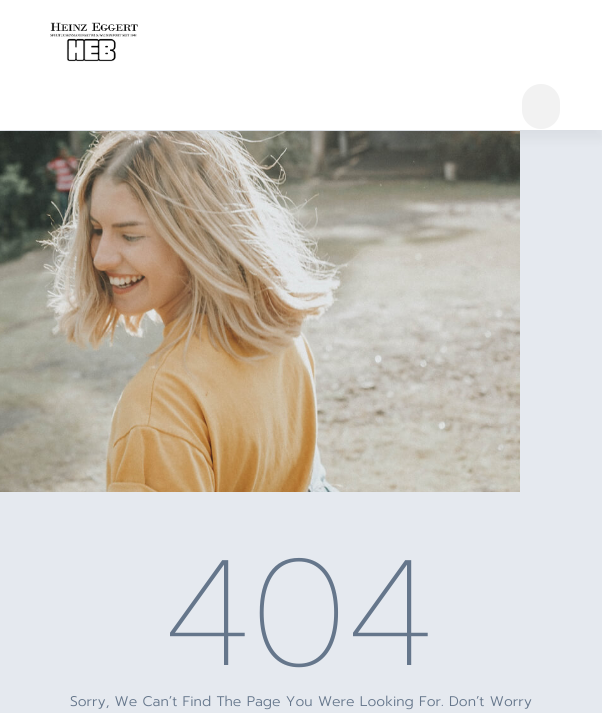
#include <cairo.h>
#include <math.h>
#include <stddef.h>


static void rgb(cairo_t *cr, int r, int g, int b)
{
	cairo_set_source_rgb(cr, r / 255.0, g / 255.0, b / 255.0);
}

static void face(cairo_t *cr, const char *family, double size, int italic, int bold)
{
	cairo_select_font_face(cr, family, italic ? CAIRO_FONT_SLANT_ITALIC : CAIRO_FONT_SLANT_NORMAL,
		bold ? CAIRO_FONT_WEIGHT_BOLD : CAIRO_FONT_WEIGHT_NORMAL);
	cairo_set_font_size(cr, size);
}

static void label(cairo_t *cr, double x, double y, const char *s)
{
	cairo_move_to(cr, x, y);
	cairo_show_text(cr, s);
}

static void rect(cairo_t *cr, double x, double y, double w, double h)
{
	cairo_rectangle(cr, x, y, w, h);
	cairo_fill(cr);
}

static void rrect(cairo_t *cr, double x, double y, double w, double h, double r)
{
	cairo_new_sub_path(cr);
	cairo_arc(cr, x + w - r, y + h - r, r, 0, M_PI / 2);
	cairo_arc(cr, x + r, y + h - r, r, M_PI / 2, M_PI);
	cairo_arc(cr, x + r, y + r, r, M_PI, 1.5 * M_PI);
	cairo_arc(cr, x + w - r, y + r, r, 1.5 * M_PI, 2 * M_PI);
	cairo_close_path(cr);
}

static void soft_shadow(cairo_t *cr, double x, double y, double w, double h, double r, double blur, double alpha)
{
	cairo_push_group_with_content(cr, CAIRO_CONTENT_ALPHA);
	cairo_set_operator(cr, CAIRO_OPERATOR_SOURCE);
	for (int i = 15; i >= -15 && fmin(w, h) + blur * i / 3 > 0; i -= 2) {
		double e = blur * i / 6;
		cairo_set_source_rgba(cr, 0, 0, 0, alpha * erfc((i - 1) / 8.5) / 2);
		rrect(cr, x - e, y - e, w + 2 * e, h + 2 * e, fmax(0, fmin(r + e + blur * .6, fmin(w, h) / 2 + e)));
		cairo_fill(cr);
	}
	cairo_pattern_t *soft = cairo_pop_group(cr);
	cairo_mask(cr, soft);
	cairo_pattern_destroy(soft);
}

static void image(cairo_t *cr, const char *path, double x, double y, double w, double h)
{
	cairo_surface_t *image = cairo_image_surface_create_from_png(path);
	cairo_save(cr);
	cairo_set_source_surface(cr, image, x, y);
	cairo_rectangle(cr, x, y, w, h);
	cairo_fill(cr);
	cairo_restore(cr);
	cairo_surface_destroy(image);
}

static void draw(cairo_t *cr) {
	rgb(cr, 229, 233, 239);
	cairo_paint(cr);
	image(cr, "image1.png", 0, 131, 520, 361);
	rgb(cr, 0, 0, 0);
	soft_shadow(cr, 0, 9, 602, 130, 0, 5, 0.05);
	rgb(cr, 255, 255, 255);
	rect(cr, 0, 0, 602, 130);
	image(cr, "image0.png", 50, 22, 88, 40);
	rgb(cr, 242, 242, 242);
	rrect(cr, 522, 84, 38, 45, 19);
	cairo_fill(cr);
	face(cr, "Prompt ExtraLight", 150, 0, 0);
	rgb(cr, 101, 118, 139);
	label(cr, 164, 665, "404");
	face(cr, "Prompt Light", 14, 0, 0);
	label(cr, 70, 706, "Sorry, We Can’t Find The Page You Were Looking For. Don’t Worry");
}

int main(void) {
	cairo_surface_t *surface = cairo_image_surface_create(CAIRO_FORMAT_RGB24, 602, 713);
	cairo_t *cr = cairo_create(surface);
	cairo_font_options_t *options = cairo_font_options_create();
	cairo_font_options_set_hint_metrics(options, CAIRO_HINT_METRICS_OFF);
	cairo_font_options_set_hint_style(options, CAIRO_HINT_STYLE_NONE);
	cairo_set_font_options(cr, options);
	cairo_set_miter_limit(cr, 4);
	draw(cr);
	cairo_surface_write_to_png(surface, "render.png");
	cairo_font_options_destroy(options);
	cairo_destroy(cr);
	cairo_surface_destroy(surface);
	return 0;
}
